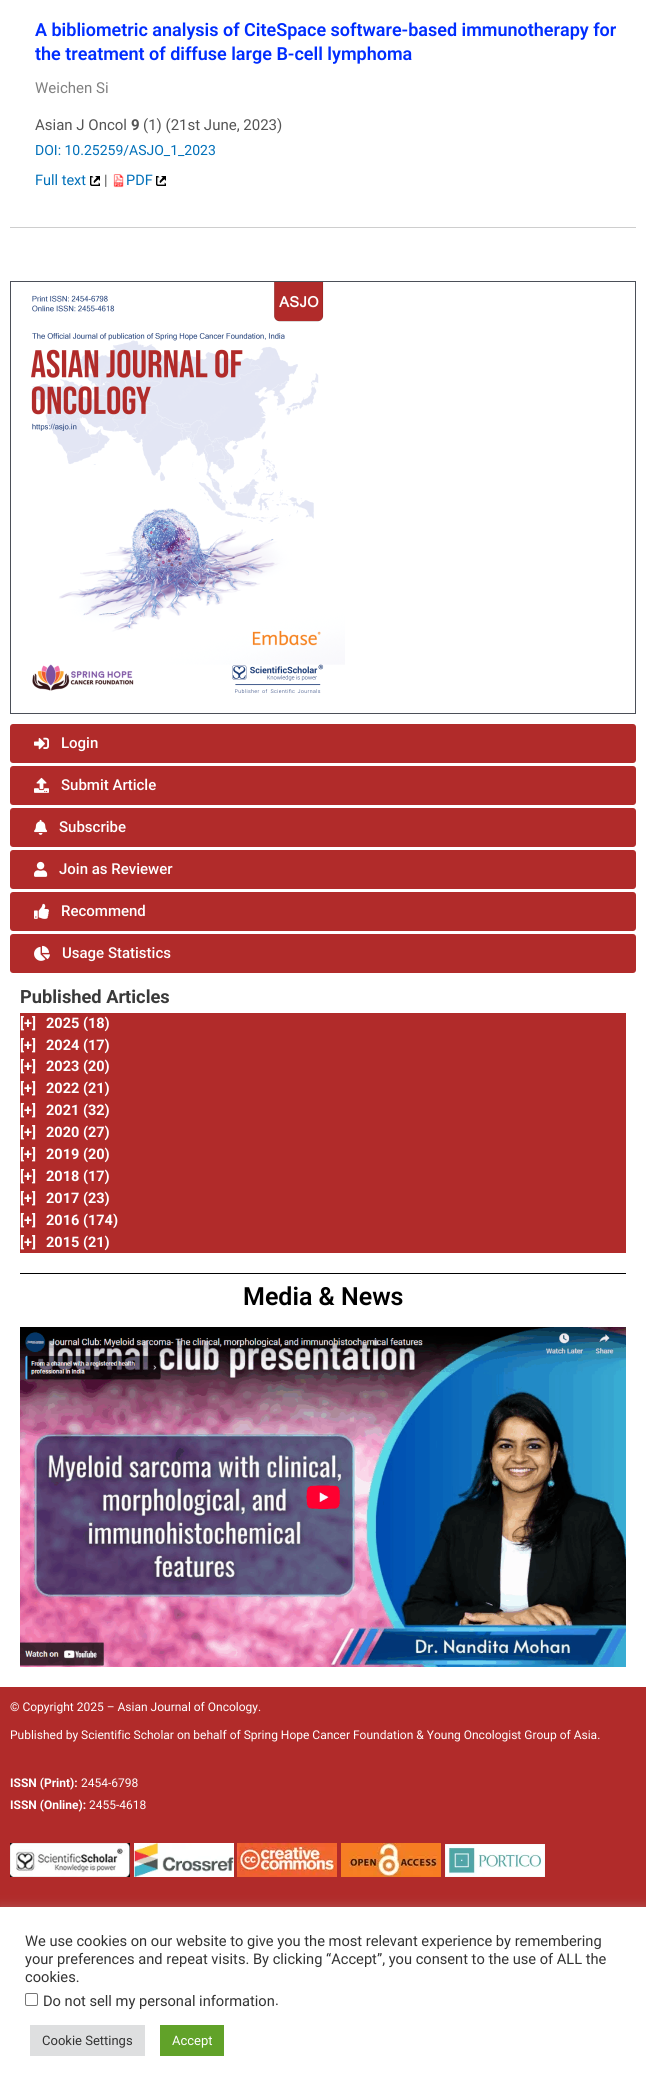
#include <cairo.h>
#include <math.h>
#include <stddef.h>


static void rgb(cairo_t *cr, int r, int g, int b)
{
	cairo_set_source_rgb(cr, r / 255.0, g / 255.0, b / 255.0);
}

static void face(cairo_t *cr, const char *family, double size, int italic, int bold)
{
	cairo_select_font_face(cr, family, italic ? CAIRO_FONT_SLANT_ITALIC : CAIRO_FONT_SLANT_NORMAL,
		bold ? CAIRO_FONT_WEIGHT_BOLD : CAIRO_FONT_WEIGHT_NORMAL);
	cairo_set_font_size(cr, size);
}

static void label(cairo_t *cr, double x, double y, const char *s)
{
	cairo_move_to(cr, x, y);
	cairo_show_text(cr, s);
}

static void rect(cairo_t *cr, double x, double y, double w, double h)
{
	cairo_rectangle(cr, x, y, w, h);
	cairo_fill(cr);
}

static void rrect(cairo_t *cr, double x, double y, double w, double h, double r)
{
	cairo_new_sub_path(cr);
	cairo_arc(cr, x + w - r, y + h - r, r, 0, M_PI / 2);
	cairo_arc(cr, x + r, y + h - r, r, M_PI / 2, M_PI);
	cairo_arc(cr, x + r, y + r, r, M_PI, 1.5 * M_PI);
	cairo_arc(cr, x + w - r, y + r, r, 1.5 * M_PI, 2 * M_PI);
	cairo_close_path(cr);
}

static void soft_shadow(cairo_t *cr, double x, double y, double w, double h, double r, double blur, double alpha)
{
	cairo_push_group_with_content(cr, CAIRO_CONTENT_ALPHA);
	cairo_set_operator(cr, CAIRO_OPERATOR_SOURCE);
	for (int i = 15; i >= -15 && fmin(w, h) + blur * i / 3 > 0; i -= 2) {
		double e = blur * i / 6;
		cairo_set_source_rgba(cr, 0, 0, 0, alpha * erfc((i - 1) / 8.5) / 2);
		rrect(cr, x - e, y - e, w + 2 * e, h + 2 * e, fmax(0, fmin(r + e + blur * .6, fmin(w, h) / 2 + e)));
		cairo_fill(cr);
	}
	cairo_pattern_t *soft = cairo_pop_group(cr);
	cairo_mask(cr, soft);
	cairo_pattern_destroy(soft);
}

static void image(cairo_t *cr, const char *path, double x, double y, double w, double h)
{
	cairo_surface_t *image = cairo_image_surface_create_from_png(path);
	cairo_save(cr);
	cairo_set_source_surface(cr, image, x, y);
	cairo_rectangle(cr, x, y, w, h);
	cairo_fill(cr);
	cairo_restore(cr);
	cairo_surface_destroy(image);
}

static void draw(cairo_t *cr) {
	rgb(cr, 255, 255, 255);
	cairo_paint(cr);
	rgb(cr, 206, 206, 206);
	rect(cr, 10, 227, 626, 1);
	face(cr, "Roboto SemiBold", 18, 0, 0);
	rgb(cr, 0, 45, 255);
	label(cr, 35, 36, "A bibliometric analysis of CiteSpace software-based immunotherapy for");
	label(cr, 35, 60, "the treatment of diffuse large B-cell lymphoma");
	face(cr, "Roboto", 15, 0, 0);
	rgb(cr, 128, 128, 128);
	label(cr, 35, 93, "Weichen Si");
	rgb(cr, 84, 84, 84);
	label(cr, 35, 130, "Asian J Oncol");
	face(cr, "Roboto", 15, 0, 1);
	label(cr, 131, 130, "9");
	face(cr, "Roboto", 15, 0, 0);
	label(cr, 143, 130, "(1) (21st June, 2023)");
	face(cr, "Roboto", 14, 0, 0);
	rgb(cr, 1, 112, 185);
	label(cr, 35, 155, "DOI: 10.25259/ASJO_1_2023");
	face(cr, "Roboto", 14.5, 0, 0);
	label(cr, 35, 185, "Full text");
	image(cr, "image0.png", 90, 176, 10, 10);
	rgb(cr, 84, 84, 84);
	label(cr, 104, 185, "|");
	image(cr, "image1.png", 113, 174, 11, 14);
	rgb(cr, 1, 112, 185);
	label(cr, 126, 185, "PDF");
	image(cr, "image0.png", 156, 176, 10, 10);
	cairo_rectangle(cr, 10.5, 281.5, 625, 432);
	rgb(cr, 75, 79, 88);
	cairo_set_line_width(cr, 1);
	cairo_stroke(cr);
	image(cr, "image2.png", 31, 282, 314, 411);
	rgb(cr, 177, 43, 42);
	rrect(cr, 10, 724, 626, 39, 3);
	cairo_fill(cr);
	image(cr, "image3.png", 34, 737, 15, 13);
	face(cr, "Roboto Medium", 15, 0, 0);
	rgb(cr, 255, 255, 255);
	label(cr, 61, 748, "Login");
	rgb(cr, 177, 43, 42);
	rrect(cr, 10, 766, 626, 39, 3);
	cairo_fill(cr);
	image(cr, "image4.png", 34, 777, 15, 16);
	rgb(cr, 255, 255, 255);
	label(cr, 61, 790, "Submit Article");
	rgb(cr, 177, 43, 42);
	rrect(cr, 10, 808, 626, 39, 3);
	cairo_fill(cr);
	image(cr, "image5.png", 34, 819, 14, 16);
	rgb(cr, 255, 255, 255);
	label(cr, 59, 832, "Subscribe");
	rgb(cr, 177, 43, 42);
	rrect(cr, 10, 850, 626, 39, 3);
	cairo_fill(cr);
	image(cr, "image6.png", 34, 861, 14, 16);
	rgb(cr, 255, 255, 255);
	label(cr, 59, 874, "Join as Reviewer");
	rgb(cr, 177, 43, 42);
	rrect(cr, 10, 892, 626, 39, 3);
	cairo_fill(cr);
	image(cr, "image7.png", 34, 903, 15, 16);
	rgb(cr, 255, 255, 255);
	label(cr, 61, 916, "Recommend");
	rgb(cr, 177, 43, 42);
	rrect(cr, 10, 934, 626, 39, 3);
	cairo_fill(cr);
	image(cr, "image8.png", 34, 945, 16, 16);
	rgb(cr, 255, 255, 255);
	label(cr, 62, 958, "Usage Statistics");
	face(cr, "Roboto", 18.25, 0, 1);
	rgb(cr, 58, 58, 58);
	label(cr, 20, 1003, "Published Articles");
	rgb(cr, 177, 43, 42);
	rect(cr, 20, 1013, 606, 240);
	face(cr, "Roboto", 14.5, 0, 1);
	rgb(cr, 255, 255, 255);
	label(cr, 20, 1028, "[+]");
	label(cr, 46, 1028, "2025 (18)");
	label(cr, 20, 1050, "[+]");
	label(cr, 46, 1050, "2024 (17)");
	label(cr, 20, 1071, "[+]");
	label(cr, 46, 1071, "2023 (20)");
	label(cr, 20, 1093, "[+]");
	label(cr, 46, 1093, "2022 (21)");
	label(cr, 20, 1115, "[+]");
	label(cr, 46, 1115, "2021 (32)");
	label(cr, 20, 1137, "[+]");
	label(cr, 46, 1137, "2020 (27)");
	label(cr, 20, 1159, "[+]");
	label(cr, 46, 1159, "2019 (20)");
	label(cr, 20, 1181, "[+]");
	label(cr, 46, 1181, "2018 (17)");
	label(cr, 20, 1203, "[+]");
	label(cr, 46, 1203, "2017 (23)");
	label(cr, 20, 1225, "[+]");
	label(cr, 46, 1225, "2016 (174)");
	label(cr, 20, 1247, "[+]");
	label(cr, 46, 1247, "2015 (21)");
	rgb(cr, 0, 0, 0);
	rect(cr, 20, 1273, 606, 1);
	face(cr, "Roboto SemiBold", 25, 0, 0);
	label(cr, 243, 1305, "Media & News");
	image(cr, "image9.png", 20, 1327, 606, 340);
	rgb(cr, 177, 43, 42);
	rect(cr, 0, 1687, 646, 220);
	face(cr, "Roboto", 12, 0, 0);
	rgb(cr, 255, 255, 255);
	label(cr, 10, 1711, "© Copyright 2025 – Asian Journal of Oncology.");
	label(cr, 10, 1739, "Published by Scientific Scholar on behalf of Spring Hope Cancer Foundation & Young Oncologist Group of Asia.");
	face(cr, "Roboto", 12, 0, 1);
	label(cr, 10, 1787, "ISSN (Print):");
	face(cr, "Roboto", 12, 0, 0);
	label(cr, 81, 1787, "2454-6798");
	face(cr, "Roboto", 12, 0, 1);
	label(cr, 10, 1809, "ISSN (Online):");
	face(cr, "Roboto", 12, 0, 0);
	label(cr, 89, 1809, "2455-4618");
	image(cr, "image10.png", 10, 1843, 120, 34);
	image(cr, "image11.png", 134, 1843, 100, 34);
	image(cr, "image12.png", 237, 1843, 100, 34);
	image(cr, "image13.png", 341, 1843, 100, 34);
	image(cr, "image14.png", 445, 1844, 100, 33);
	rgb(cr, 172, 171, 171);
	soft_shadow(cr, 0, 1906, 646, 179, 0, 5, 0.3);
	rgb(cr, 255, 255, 255);
	rect(cr, 0, 1907, 646, 179);
	face(cr, "Roboto", 14.65, 0, 0);
	rgb(cr, 51, 51, 51);
	label(cr, 25, 1946, "We use cookies on our website to give you the most relevant experience by remembering");
	label(cr, 25, 1964, "your preferences and repeat visits. By clicking “Accept”, you consent to the use of ALL the");
	label(cr, 25, 1982, "cookies.");
	rrect(cr, 25.5, 1993.5, 12, 12, 1.5);
	rgb(cr, 118, 118, 118);
	cairo_stroke(cr);
	rgb(cr, 51, 51, 51);
	label(cr, 43, 2006, "Do not sell my personal information");
	label(cr, 275, 2005, ".");
	rgb(cr, 222, 223, 224);
	rect(cr, 30, 2025, 115, 31);
	face(cr, "Roboto", 13, 0, 0);
	rgb(cr, 51, 51, 51);
	label(cr, 42, 2045, "Cookie Settings");
	rgb(cr, 97, 162, 41);
	rect(cr, 160, 2025, 64, 31);
	rgb(cr, 255, 255, 255);
	label(cr, 172, 2045, "Accept");
}

int main(void) {
	cairo_surface_t *surface = cairo_image_surface_create(CAIRO_FORMAT_RGB24, 646, 2086);
	cairo_t *cr = cairo_create(surface);
	cairo_font_options_t *options = cairo_font_options_create();
	cairo_font_options_set_hint_metrics(options, CAIRO_HINT_METRICS_OFF);
	cairo_font_options_set_hint_style(options, CAIRO_HINT_STYLE_NONE);
	cairo_set_font_options(cr, options);
	cairo_set_miter_limit(cr, 4);
	draw(cr);
	cairo_surface_write_to_png(surface, "render.png");
	cairo_font_options_destroy(options);
	cairo_destroy(cr);
	cairo_surface_destroy(surface);
	return 0;
}
